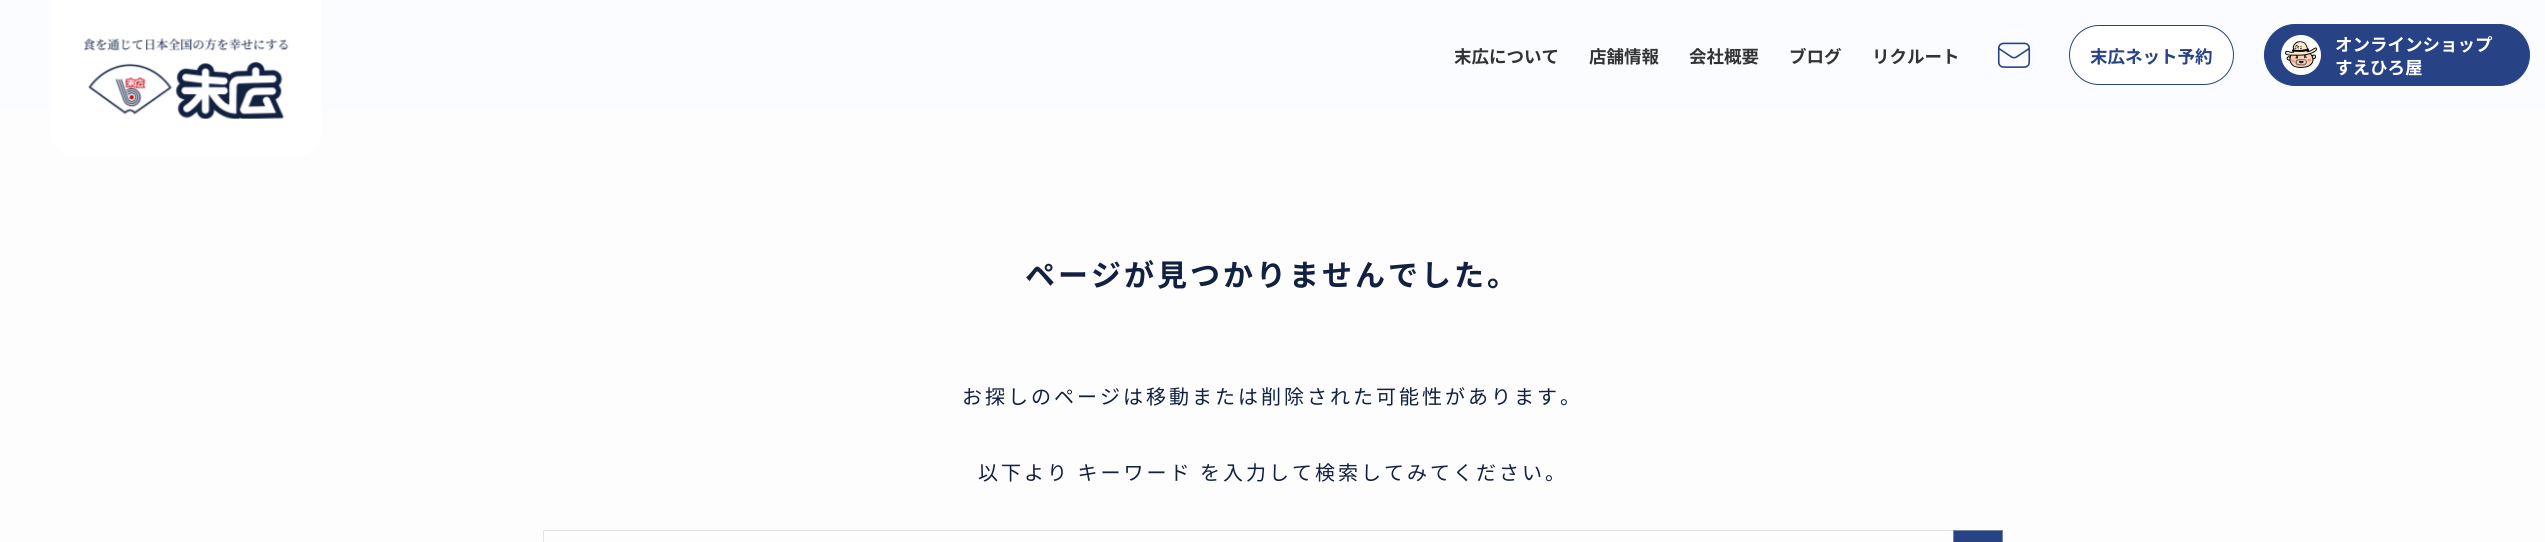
#include <cairo.h>
#include <math.h>
#include <stddef.h>


static void rgb(cairo_t *cr, int r, int g, int b)
{
	cairo_set_source_rgb(cr, r / 255.0, g / 255.0, b / 255.0);
}

static void face(cairo_t *cr, const char *family, double size, int italic, int bold)
{
	cairo_select_font_face(cr, family, italic ? CAIRO_FONT_SLANT_ITALIC : CAIRO_FONT_SLANT_NORMAL,
		bold ? CAIRO_FONT_WEIGHT_BOLD : CAIRO_FONT_WEIGHT_NORMAL);
	cairo_set_font_size(cr, size);
}

static void label(cairo_t *cr, double x, double y, const char *s)
{
	cairo_move_to(cr, x, y);
	cairo_show_text(cr, s);
}

static void tracked(cairo_t *cr, double x, double y, const char *s, double letter, double word)
{
	cairo_move_to(cr, x, y);
	while (*s) {
		char ch[5] = {0};
		int n = 0;
		do ch[n++] = *s++; while ((*s & 0xC0) == 0x80);
		cairo_show_text(cr, ch);
		cairo_rel_move_to(cr, letter + word * (*ch == ' '), 0);
	}
}

static void rect(cairo_t *cr, double x, double y, double w, double h)
{
	cairo_rectangle(cr, x, y, w, h);
	cairo_fill(cr);
}

static void rrect(cairo_t *cr, double x, double y, double w, double h, double r)
{
	cairo_new_sub_path(cr);
	cairo_arc(cr, x + w - r, y + h - r, r, 0, M_PI / 2);
	cairo_arc(cr, x + r, y + h - r, r, M_PI / 2, M_PI);
	cairo_arc(cr, x + r, y + r, r, M_PI, 1.5 * M_PI);
	cairo_arc(cr, x + w - r, y + r, r, 1.5 * M_PI, 2 * M_PI);
	cairo_close_path(cr);
}

static void image(cairo_t *cr, const char *path, double x, double y, double w, double h)
{
	cairo_surface_t *image = cairo_image_surface_create_from_png(path);
	cairo_save(cr);
	cairo_set_source_surface(cr, image, x, y);
	cairo_rectangle(cr, x, y, w, h);
	cairo_fill(cr);
	cairo_restore(cr);
	cairo_surface_destroy(image);
}

static void draw(cairo_t *cr) {
	rgb(cr, 253, 253, 253);
	cairo_paint(cr);
	rgb(cr, 250, 252, 255);
	rect(cr, 0, 0, 2545, 110);
	rgb(cr, 255, 255, 255);
	cairo_new_path(cr);
	cairo_move_to(cr, 51, 0);
	cairo_line_to(cr, 321, 0);
	cairo_line_to(cr, 321, 132);
	cairo_curve_to(cr, 321, 145.5, 310.5, 156, 297, 156);
	cairo_line_to(cr, 75, 156);
	cairo_curve_to(cr, 61.5, 156, 51, 145.5, 51, 132);
	cairo_close_path(cr);
	cairo_fill(cr);
	image(cr, "image0.png", 83, 38, 206, 81);
	face(cr, "Noto Sans JP", 17.5, 0, 1);
	rgb(cr, 51, 51, 51);
	label(cr, 1454, 63, "末広について");
	label(cr, 1589, 63, "店舗情報");
	label(cr, 1689, 63, "会社概要");
	label(cr, 1789, 63, "ブログ");
	label(cr, 1872, 63, "リクルート");
	image(cr, "image1.png", 1997, 42, 34, 26);
	cairo_arc(cr, 2014, 55, 24.5, 0, 2 * M_PI);
	rgb(cr, 255, 255, 255);
	cairo_set_line_width(cr, 1);
	cairo_stroke(cr);
	rrect(cr, 2069.5, 25.5, 164, 59, 29.5);
	cairo_fill_preserve(cr);
	rgb(cr, 39, 67, 134);
	cairo_stroke(cr);
	label(cr, 2090, 63, "末広ネット予約");
	rrect(cr, 2264.5, 24.5, 265, 61, 30.5);
	cairo_fill_preserve(cr);
	cairo_stroke(cr);
	rgb(cr, 255, 255, 255);
	cairo_arc(cr, 2301, 55, 20, 0, 2 * M_PI);
	cairo_fill(cr);
	image(cr, "image2.png", 2285, 41, 32, 27);
	label(cr, 2335, 51, "オンラインショップ");
	label(cr, 2335, 74, "すえひろ屋");
	face(cr, "Noto Sans JP", 30, 0, 1);
	rgb(cr, 18, 32, 65);
	tracked(cr, 1025, 286, "ページが見つかりませんでした。", 3, 0);
	face(cr, "Noto Sans JP", 20, 0, 0);
	tracked(cr, 962, 404, "お探しのページは移動または削除された可能性があります。", 3, 0);
	tracked(cr, 978, 480, "以下より キーワード を入力して検索してみてください。", 3, 0);
	cairo_rectangle(cr, 543.5, 530.5, 1459, 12);
	rgb(cr, 227, 227, 227);
	cairo_stroke(cr);
	rgb(cr, 39, 67, 134);
	cairo_rectangle(cr, 1953.5, 530.5, 49, 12);
	cairo_fill_preserve(cr);
	rgb(cr, 119, 133, 167);
	cairo_stroke(cr);
}

int main(void) {
	cairo_surface_t *surface = cairo_image_surface_create(CAIRO_FORMAT_RGB24, 2545, 542);
	cairo_t *cr = cairo_create(surface);
	cairo_font_options_t *options = cairo_font_options_create();
	cairo_font_options_set_hint_metrics(options, CAIRO_HINT_METRICS_OFF);
	cairo_font_options_set_hint_style(options, CAIRO_HINT_STYLE_NONE);
	cairo_set_font_options(cr, options);
	cairo_set_miter_limit(cr, 4);
	draw(cr);
	cairo_surface_write_to_png(surface, "render.png");
	cairo_font_options_destroy(options);
	cairo_destroy(cr);
	cairo_surface_destroy(surface);
	return 0;
}
